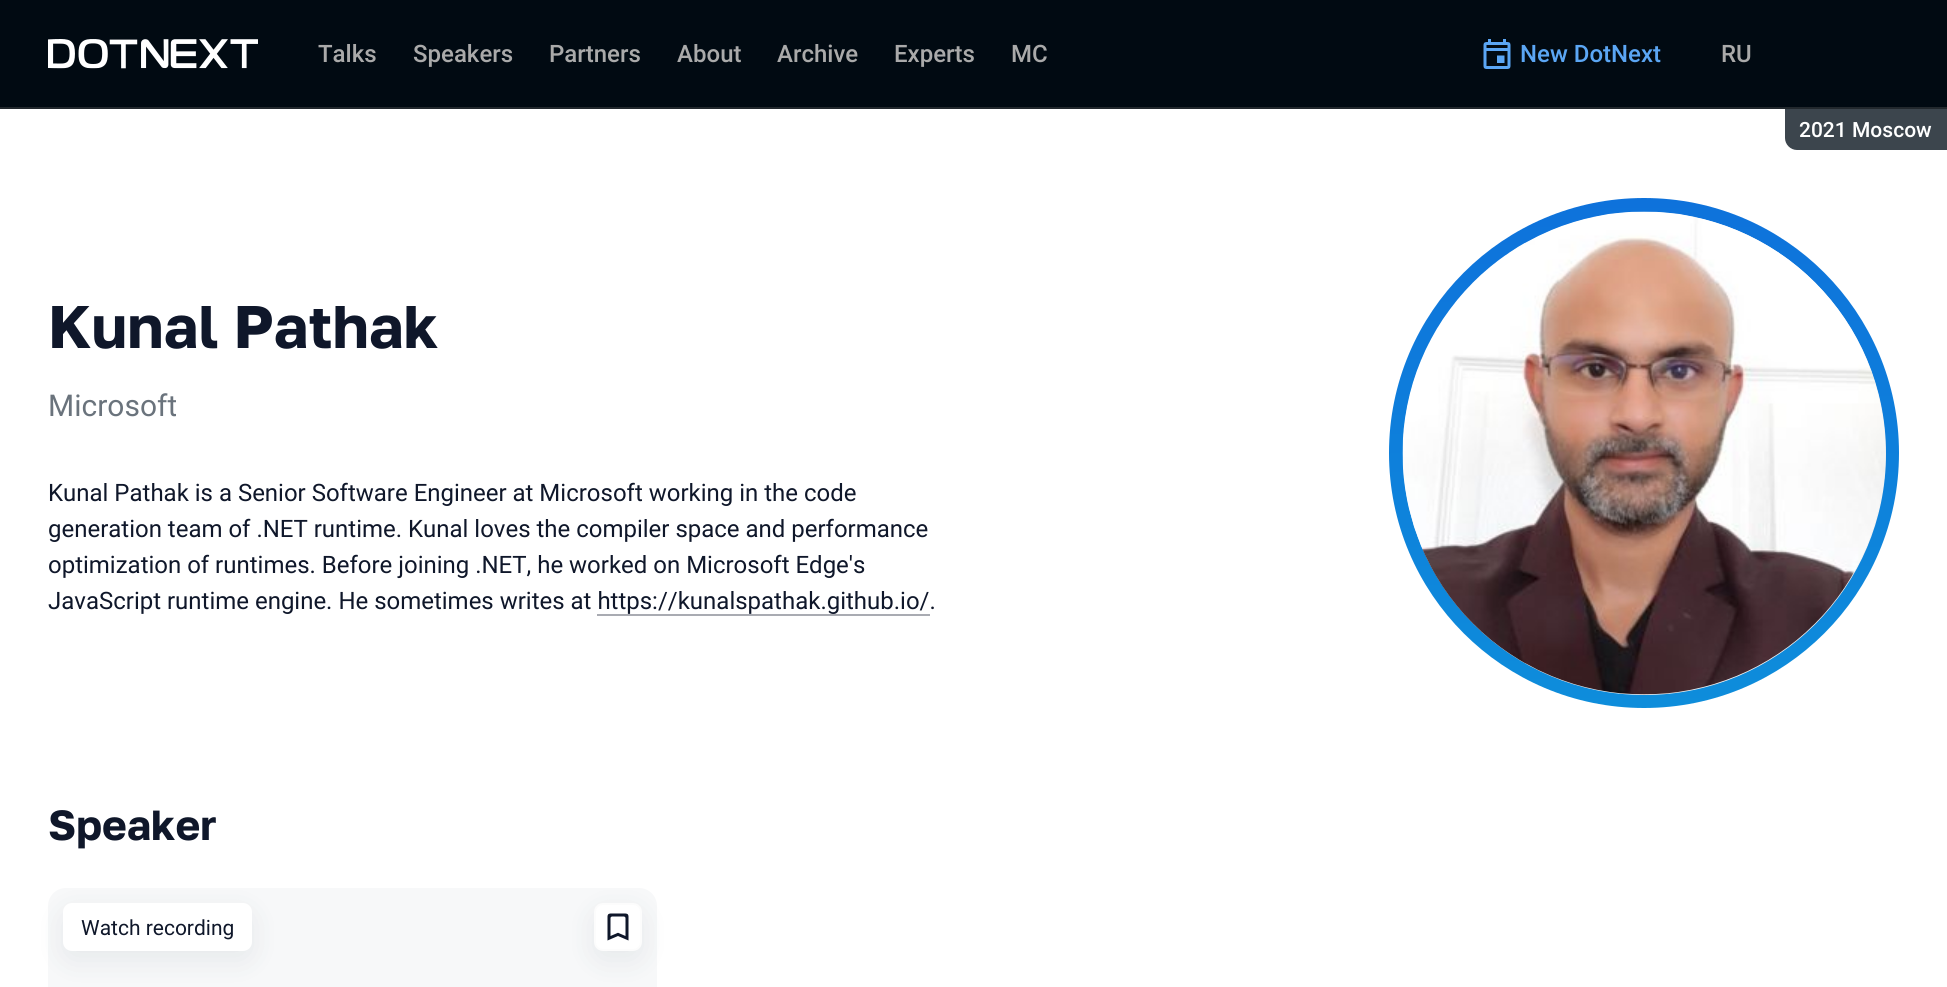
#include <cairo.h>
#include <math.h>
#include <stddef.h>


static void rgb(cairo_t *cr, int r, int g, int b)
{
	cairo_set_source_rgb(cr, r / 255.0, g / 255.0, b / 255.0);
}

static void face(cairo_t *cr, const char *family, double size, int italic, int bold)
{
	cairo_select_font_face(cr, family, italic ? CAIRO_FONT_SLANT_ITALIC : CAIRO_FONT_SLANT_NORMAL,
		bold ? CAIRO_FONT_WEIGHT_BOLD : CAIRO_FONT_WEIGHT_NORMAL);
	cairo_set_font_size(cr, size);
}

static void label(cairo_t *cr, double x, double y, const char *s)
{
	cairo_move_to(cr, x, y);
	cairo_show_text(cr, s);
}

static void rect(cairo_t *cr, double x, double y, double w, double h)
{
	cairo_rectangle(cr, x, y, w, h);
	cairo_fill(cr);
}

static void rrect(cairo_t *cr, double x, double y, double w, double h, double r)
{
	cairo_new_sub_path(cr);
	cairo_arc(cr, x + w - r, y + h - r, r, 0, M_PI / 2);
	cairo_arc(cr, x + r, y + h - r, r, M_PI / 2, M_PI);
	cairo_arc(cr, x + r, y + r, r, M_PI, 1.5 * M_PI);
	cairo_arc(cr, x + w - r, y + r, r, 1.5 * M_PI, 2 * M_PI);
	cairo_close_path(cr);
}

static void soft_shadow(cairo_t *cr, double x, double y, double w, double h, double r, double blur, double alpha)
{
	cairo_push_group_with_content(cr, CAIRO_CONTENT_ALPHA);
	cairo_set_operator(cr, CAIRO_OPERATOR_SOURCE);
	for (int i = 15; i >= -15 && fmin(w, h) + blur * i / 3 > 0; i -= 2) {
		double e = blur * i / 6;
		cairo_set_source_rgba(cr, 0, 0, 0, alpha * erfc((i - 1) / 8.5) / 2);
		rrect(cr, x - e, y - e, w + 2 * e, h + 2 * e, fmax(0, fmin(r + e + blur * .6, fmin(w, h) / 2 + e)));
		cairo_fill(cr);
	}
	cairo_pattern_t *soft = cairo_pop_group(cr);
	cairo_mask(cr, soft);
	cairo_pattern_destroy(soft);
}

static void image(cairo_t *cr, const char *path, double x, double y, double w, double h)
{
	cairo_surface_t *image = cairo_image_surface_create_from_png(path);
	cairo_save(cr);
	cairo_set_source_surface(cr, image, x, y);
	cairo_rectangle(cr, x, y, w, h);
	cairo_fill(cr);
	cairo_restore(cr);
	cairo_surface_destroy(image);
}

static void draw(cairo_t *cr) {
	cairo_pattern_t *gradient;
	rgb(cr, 255, 255, 255);
	cairo_paint(cr);
	rgb(cr, 1, 10, 18);
	rect(cr, 0, 0, 1947, 107);
	image(cr, "image0.png", 48, 39, 210, 30);
	face(cr, "Roboto Medium", 24, 0, 0);
	rgb(cr, 170, 170, 170);
	label(cr, 318, 62, "Talks");
	label(cr, 413, 62, "Speakers");
	label(cr, 549, 62, "Partners");
	label(cr, 677, 62, "About");
	label(cr, 777, 62, "Archive");
	label(cr, 894, 62, "Experts");
	label(cr, 1011, 62, "MC");
	image(cr, "image1.png", 1483, 39, 28, 30);
	rgb(cr, 91, 166, 244);
	label(cr, 1520, 62, "New DotNext");
	rgb(cr, 60, 69, 77);
	cairo_new_path(cr);
	cairo_move_to(cr, 1785, 108);
	cairo_line_to(cr, 1947, 108);
	cairo_line_to(cr, 1947, 150);
	cairo_line_to(cr, 1797, 150);
	cairo_curve_to(cr, 1790.5, 150, 1785, 144.5, 1785, 138);
	cairo_close_path(cr);
	cairo_fill(cr);
	face(cr, "Roboto Medium", 21, 0, 0);
	rgb(cr, 255, 255, 255);
	label(cr, 1799, 137, "2021 Moscow");
	face(cr, "Roboto Medium", 24, 0, 0);
	rgb(cr, 170, 170, 170);
	label(cr, 1721, 62, "RU");
	rgb(cr, 34, 40, 45);
	rect(cr, 0, 107, 1947, 2);
	face(cr, "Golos", 60, 0, 1);
	rgb(cr, 15, 23, 42);
	label(cr, 48, 348, "Kunal Pathak");
	face(cr, "Roboto", 30, 0, 0);
	rgb(cr, 106, 115, 124);
	label(cr, 48, 416, "Microsoft");
	face(cr, "Roboto", 24, 0, 0);
	rgb(cr, 15, 23, 42);
	label(cr, 48, 501, "Kunal Pathak is a Senior Software Engineer at Microsoft working in the code");
	label(cr, 48, 537, "generation team of .NET runtime. Kunal loves the compiler space and performance");
	label(cr, 48, 573, "optimization of runtimes. Before joining .NET, he worked on Microsoft Edge's");
	label(cr, 48, 609, "JavaScript runtime engine. He sometimes writes at https://kunalspathak.github.io/.");
	rgb(cr, 169, 171, 178);
	rect(cr, 597, 614, 333, 2);
	gradient = cairo_pattern_create_linear(1644, 198, 1644, 708);
	cairo_pattern_add_color_stop_rgba(gradient, 0, 0.055, 0.447, 0.859, 1);
	cairo_pattern_add_color_stop_rgba(gradient, 1, 0.055, 0.553, 0.859, 1);
	cairo_set_source(cr, gradient);
	cairo_pattern_destroy(gradient);
	cairo_new_path(cr);
	cairo_arc(cr, 1644, 453, 255, 0, 2 * M_PI);
	cairo_fill(cr);
	rgb(cr, 241, 241, 241);
	cairo_arc(cr, 1644.5, 453.5, 241.5, 0, 2 * M_PI);
	cairo_fill(cr);
	image(cr, "image2.png", 1402, 211, 484, 484);
	face(cr, "Golos", 42, 0, 1);
	rgb(cr, 15, 23, 42);
	label(cr, 48, 840, "Speaker");
	rgb(cr, 247, 248, 249);
	rrect(cr, 48, 888, 609, 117, 18);
	cairo_fill(cr);
	rgb(cr, 30, 54, 72);
	soft_shadow(cr, 63, 912, 189, 48, 9, 15, 0.08);
	rgb(cr, 255, 255, 255);
	rrect(cr, 63, 903, 189, 48, 9);
	cairo_fill(cr);
	face(cr, "Roboto", 21, 0, 0);
	rgb(cr, 15, 23, 42);
	label(cr, 81, 935, "Watch recording");
	rgb(cr, 30, 54, 72);
	soft_shadow(cr, 594, 912, 48, 48, 9, 15, 0.08);
	rgb(cr, 255, 255, 255);
	rrect(cr, 595, 904, 46, 46, 8);
	cairo_fill_preserve(cr);
	rgb(cr, 252, 252, 252);
	cairo_stroke(cr);
	image(cr, "image3.png", 607, 913, 22, 28);
}

int main(void) {
	cairo_surface_t *surface = cairo_image_surface_create(CAIRO_FORMAT_RGB24, 1947, 987);
	cairo_t *cr = cairo_create(surface);
	cairo_font_options_t *options = cairo_font_options_create();
	cairo_font_options_set_hint_metrics(options, CAIRO_HINT_METRICS_OFF);
	cairo_font_options_set_hint_style(options, CAIRO_HINT_STYLE_NONE);
	cairo_set_font_options(cr, options);
	cairo_set_miter_limit(cr, 4);
	draw(cr);
	cairo_surface_write_to_png(surface, "render.png");
	cairo_font_options_destroy(options);
	cairo_destroy(cr);
	cairo_surface_destroy(surface);
	return 0;
}
